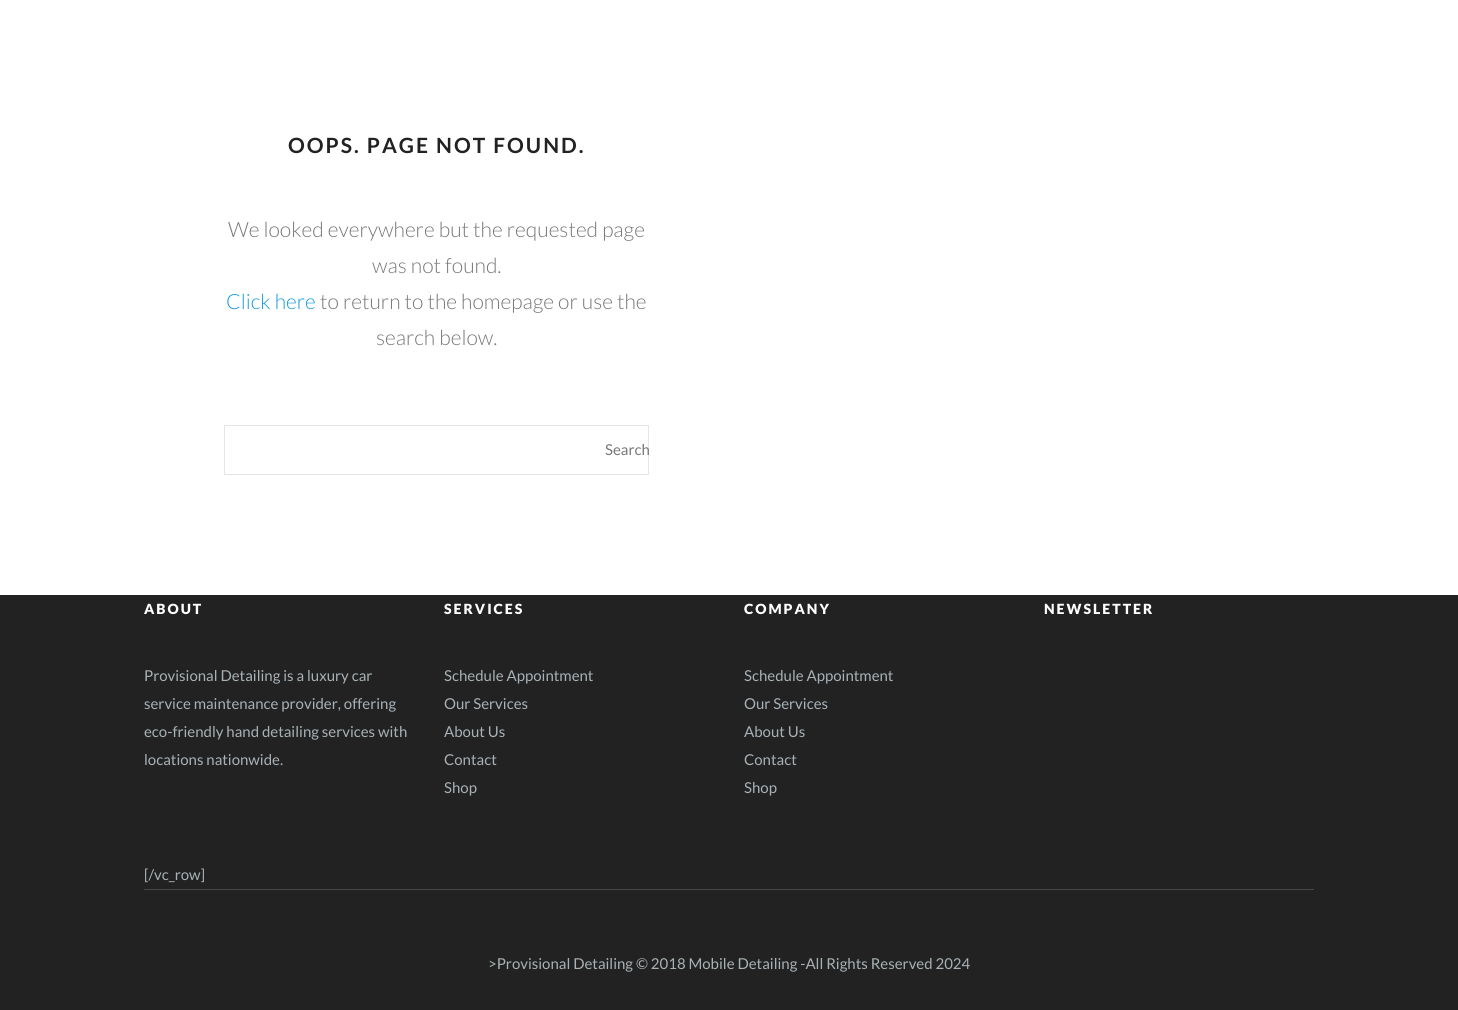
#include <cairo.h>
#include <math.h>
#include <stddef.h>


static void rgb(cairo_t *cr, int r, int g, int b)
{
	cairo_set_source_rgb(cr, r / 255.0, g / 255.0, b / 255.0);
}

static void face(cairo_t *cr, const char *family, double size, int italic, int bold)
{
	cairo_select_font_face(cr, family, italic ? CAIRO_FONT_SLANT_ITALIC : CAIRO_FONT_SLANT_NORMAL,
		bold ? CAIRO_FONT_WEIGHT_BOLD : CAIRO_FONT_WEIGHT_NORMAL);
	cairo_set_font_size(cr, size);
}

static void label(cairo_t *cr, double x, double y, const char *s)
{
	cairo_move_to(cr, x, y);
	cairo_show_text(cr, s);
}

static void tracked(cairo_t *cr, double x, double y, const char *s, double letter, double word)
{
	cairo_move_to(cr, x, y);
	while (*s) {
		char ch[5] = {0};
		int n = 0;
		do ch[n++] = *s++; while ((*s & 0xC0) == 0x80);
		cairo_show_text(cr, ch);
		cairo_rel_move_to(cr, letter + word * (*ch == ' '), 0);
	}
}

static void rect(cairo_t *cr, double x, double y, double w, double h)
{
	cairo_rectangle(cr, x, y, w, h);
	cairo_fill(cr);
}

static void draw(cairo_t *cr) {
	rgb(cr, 255, 255, 255);
	cairo_paint(cr);
	face(cr, "Lato", 21, 0, 1);
	rgb(cr, 34, 34, 34);
	tracked(cr, 288, 153, "OOPS. PAGE NOT FOUND.", 2, 0);
	face(cr, "Lato Light", 21, 0, 0);
	rgb(cr, 119, 119, 119);
	label(cr, 228, 237, "We looked everywhere but the requested page");
	label(cr, 372, 273, "was not found.");
	rgb(cr, 25, 156, 219);
	label(cr, 226, 309, "Click here");
	rgb(cr, 119, 119, 119);
	label(cr, 320, 309, "to return to the homepage or use the");
	label(cr, 376, 345, "search below.");
	cairo_rectangle(cr, 224.5, 425.5, 424, 49);
	rgb(cr, 226, 230, 231);
	cairo_set_line_width(cr, 1);
	cairo_stroke(cr);
	face(cr, "Lato", 15, 0, 0);
	rgb(cr, 119, 119, 119);
	label(cr, 605, 455, "Search");
	rgb(cr, 34, 34, 34);
	rect(cr, 0, 595, 1458, 415);
	rgb(cr, 71, 72, 74);
	rect(cr, 144, 889, 1170, 1);
	face(cr, "Lato Black", 14, 0, 0);
	rgb(cr, 255, 255, 255);
	tracked(cr, 144, 614, "ABOUT", 2, 0);
	face(cr, "Lato", 15, 0, 0);
	rgb(cr, 168, 177, 182);
	label(cr, 144, 681, "Provisional Detailing is a luxury car");
	label(cr, 144, 709, "service maintenance provider, offering");
	label(cr, 144, 737, "eco-friendly hand detailing services with");
	label(cr, 144, 765, "locations nationwide.");
	face(cr, "Lato Black", 14, 0, 0);
	rgb(cr, 255, 255, 255);
	tracked(cr, 444, 614, "SERVICES", 2, 0);
	face(cr, "Lato", 15, 0, 0);
	rgb(cr, 168, 177, 182);
	label(cr, 444, 681, "Schedule Appointment");
	label(cr, 444, 709, "Our Services");
	label(cr, 444, 737, "About Us");
	label(cr, 444, 765, "Contact");
	label(cr, 444, 793, "Shop");
	face(cr, "Lato Black", 14, 0, 0);
	rgb(cr, 255, 255, 255);
	tracked(cr, 744, 614, "COMPANY", 2, 0);
	face(cr, "Lato", 15, 0, 0);
	rgb(cr, 168, 177, 182);
	label(cr, 744, 681, "Schedule Appointment");
	label(cr, 744, 709, "Our Services");
	label(cr, 744, 737, "About Us");
	label(cr, 744, 765, "Contact");
	label(cr, 744, 793, "Shop");
	face(cr, "Lato Black", 14, 0, 0);
	rgb(cr, 255, 255, 255);
	tracked(cr, 1044, 614, "NEWSLETTER", 2, 0);
	face(cr, "Lato", 15, 0, 0);
	rgb(cr, 168, 177, 182);
	label(cr, 144, 880, "[/vc_row]");
	label(cr, 488, 969, ">Provisional Detailing © 2018 Mobile Detailing -All Rights Reserved 2024");
}

int main(void) {
	cairo_surface_t *surface = cairo_image_surface_create(CAIRO_FORMAT_RGB24, 1458, 1010);
	cairo_t *cr = cairo_create(surface);
	cairo_font_options_t *options = cairo_font_options_create();
	cairo_font_options_set_hint_metrics(options, CAIRO_HINT_METRICS_OFF);
	cairo_font_options_set_hint_style(options, CAIRO_HINT_STYLE_NONE);
	cairo_set_font_options(cr, options);
	cairo_set_miter_limit(cr, 4);
	draw(cr);
	cairo_surface_write_to_png(surface, "render.png");
	cairo_font_options_destroy(options);
	cairo_destroy(cr);
	cairo_surface_destroy(surface);
	return 0;
}
